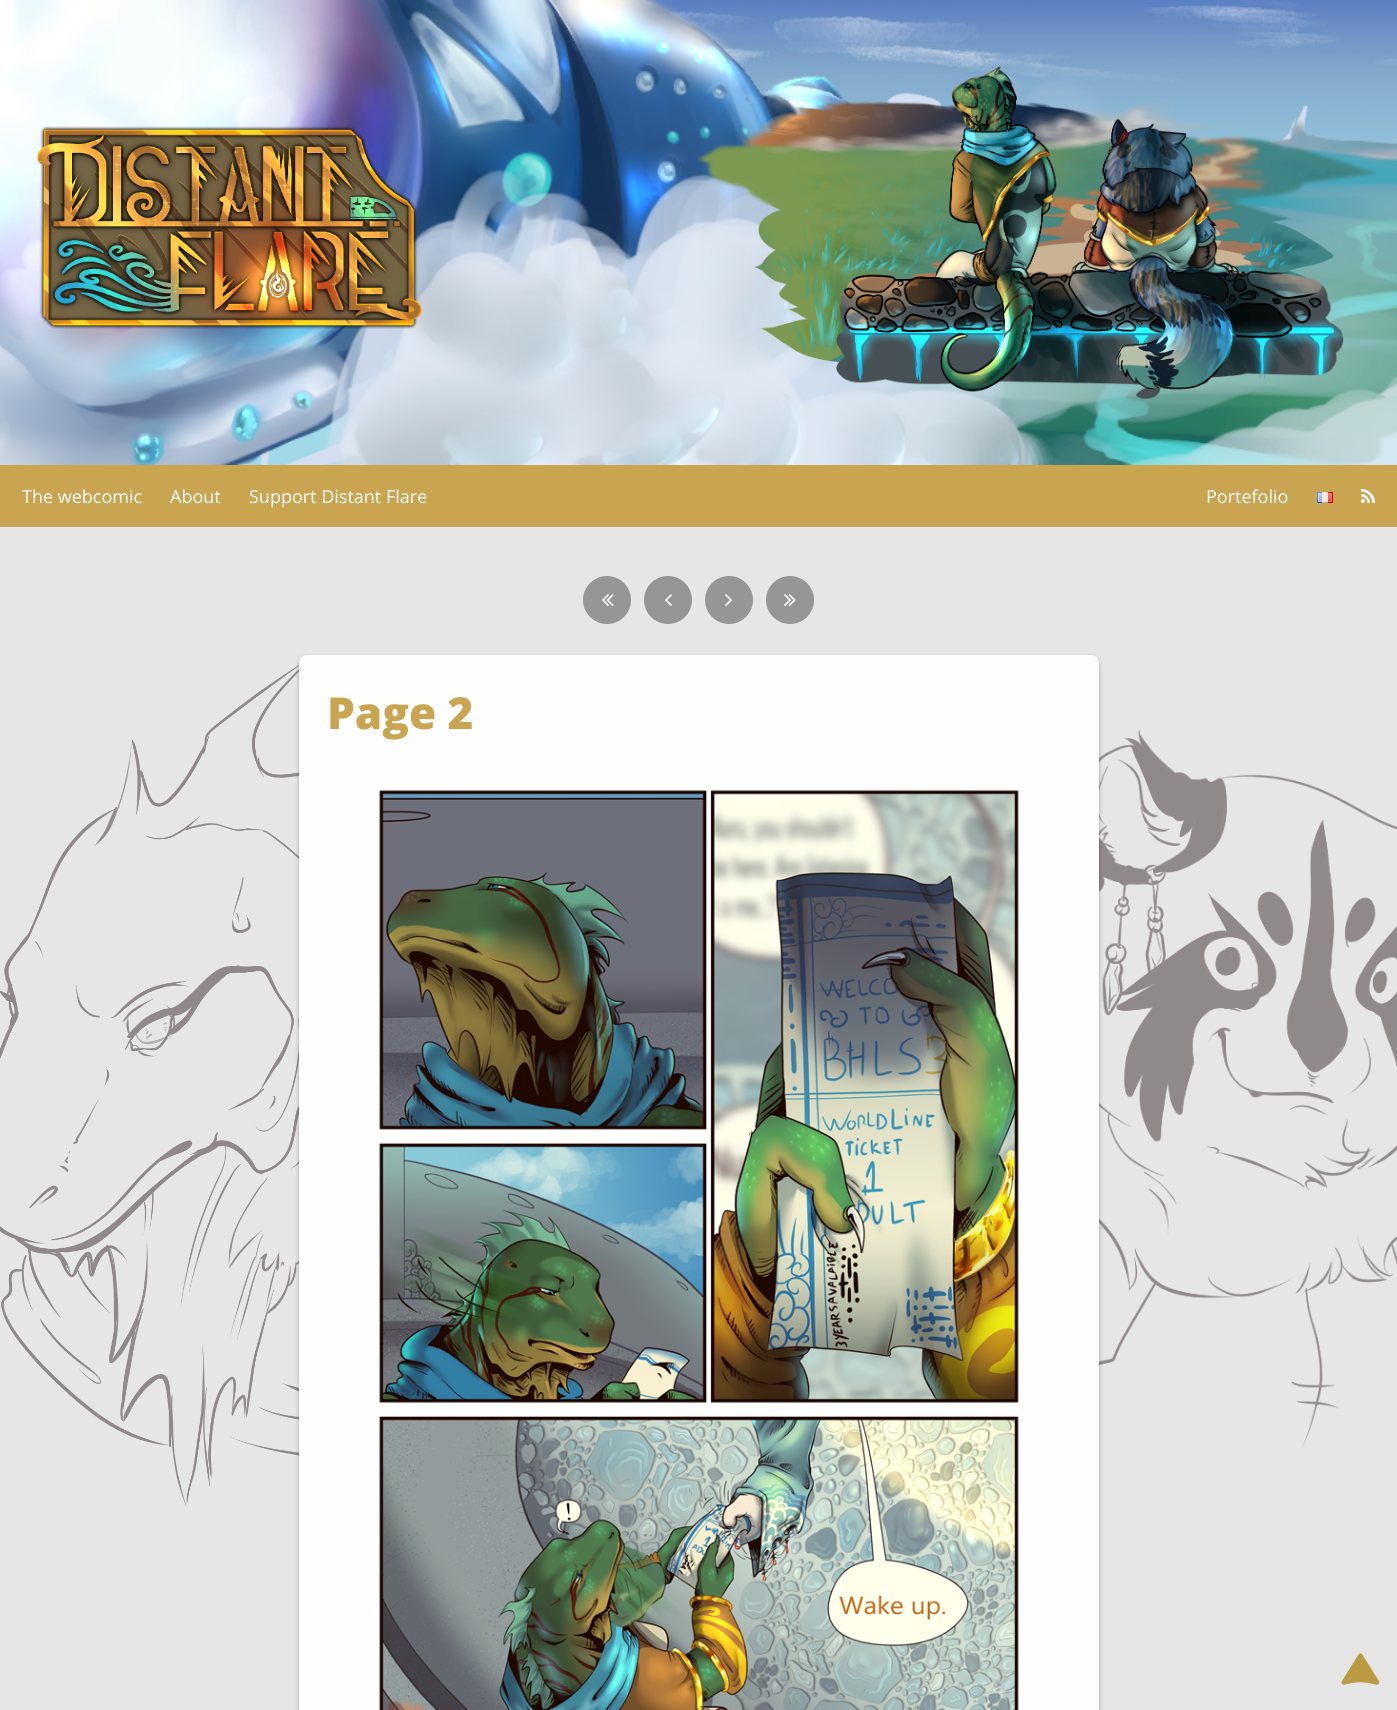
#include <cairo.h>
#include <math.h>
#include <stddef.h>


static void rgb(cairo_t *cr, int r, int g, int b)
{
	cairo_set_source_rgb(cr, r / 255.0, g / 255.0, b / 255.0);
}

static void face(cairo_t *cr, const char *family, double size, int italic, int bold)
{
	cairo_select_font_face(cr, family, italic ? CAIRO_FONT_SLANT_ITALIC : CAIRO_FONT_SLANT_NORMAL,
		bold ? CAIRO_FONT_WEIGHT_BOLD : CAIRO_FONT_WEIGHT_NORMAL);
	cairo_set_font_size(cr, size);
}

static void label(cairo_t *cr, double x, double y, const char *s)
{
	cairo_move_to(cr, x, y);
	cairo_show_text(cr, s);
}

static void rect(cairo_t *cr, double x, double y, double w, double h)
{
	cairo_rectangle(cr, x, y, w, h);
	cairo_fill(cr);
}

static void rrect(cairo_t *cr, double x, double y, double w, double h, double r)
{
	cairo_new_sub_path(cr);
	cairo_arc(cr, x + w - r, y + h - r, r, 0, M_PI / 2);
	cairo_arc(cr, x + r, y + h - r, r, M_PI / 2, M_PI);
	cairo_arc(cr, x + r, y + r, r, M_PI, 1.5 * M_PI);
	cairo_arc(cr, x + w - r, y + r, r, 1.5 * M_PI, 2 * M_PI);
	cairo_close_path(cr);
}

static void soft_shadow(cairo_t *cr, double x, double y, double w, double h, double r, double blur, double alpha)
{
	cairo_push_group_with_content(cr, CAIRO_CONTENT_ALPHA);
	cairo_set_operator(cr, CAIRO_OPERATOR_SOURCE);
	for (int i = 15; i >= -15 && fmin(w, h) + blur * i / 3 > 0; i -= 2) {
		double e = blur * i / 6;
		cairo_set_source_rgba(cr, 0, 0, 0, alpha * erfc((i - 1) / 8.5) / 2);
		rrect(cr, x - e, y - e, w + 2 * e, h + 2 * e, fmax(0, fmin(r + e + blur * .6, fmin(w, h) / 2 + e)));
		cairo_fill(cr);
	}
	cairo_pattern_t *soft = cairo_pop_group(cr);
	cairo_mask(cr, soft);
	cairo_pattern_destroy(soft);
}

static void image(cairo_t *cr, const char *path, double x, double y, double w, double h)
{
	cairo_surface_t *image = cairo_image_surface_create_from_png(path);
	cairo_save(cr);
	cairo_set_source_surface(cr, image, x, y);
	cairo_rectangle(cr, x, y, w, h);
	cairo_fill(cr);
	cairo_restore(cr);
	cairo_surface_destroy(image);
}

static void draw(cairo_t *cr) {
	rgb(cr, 230, 230, 230);
	cairo_paint(cr);
	image(cr, "image0.png", 0, 664, 1397, 843);
	image(cr, "image1.png", 0, 0, 1397, 465);
	image(cr, "image2.png", 37, 126, 385, 203);
	image(cr, "image3.png", 697, 66, 679, 333);
	rgb(cr, 202, 165, 81);
	rect(cr, 0, 465, 1397, 62);
	face(cr, "Open Sans", 18, 0, 0);
	rgb(cr, 254, 254, 254);
	label(cr, 22, 503, "The webcomic");
	label(cr, 170, 503, "About");
	label(cr, 249, 503, "Support Distant Flare");
	label(cr, 1206, 503, "Portefolio");
	image(cr, "image4.png", 1317, 492, 16, 11);
	image(cr, "image5.png", 1361, 488, 15, 15);
	rgb(cr, 150, 150, 150);
	cairo_arc(cr, 607, 600, 24, 0, 2 * M_PI);
	cairo_fill(cr);
	image(cr, "image6.png", 602, 594, 12, 12);
	cairo_arc(cr, 668, 600, 24, 0, 2 * M_PI);
	cairo_fill(cr);
	image(cr, "image7.png", 665, 594, 7, 12);
	cairo_arc(cr, 729, 600, 24, 0, 2 * M_PI);
	cairo_fill(cr);
	image(cr, "image8.png", 725, 594, 7, 12);
	cairo_arc(cr, 790, 600, 24, 0, 2 * M_PI);
	cairo_fill(cr);
	image(cr, "image9.png", 784, 594, 12, 12);
	rgb(cr, 0, 0, 0);
	soft_shadow(cr, 299, 657, 800, 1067, 8, 2, 0.3);
	rgb(cr, 254, 254, 254);
	rrect(cr, 299, 655, 800, 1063, 8);
	cairo_fill(cr);
	face(cr, "Open Sans ExtraBold", 44, 0, 0);
	rgb(cr, 202, 165, 81);
	label(cr, 327, 729, "Page 2");
	image(cr, "image10.png", 379, 790, 640, 920);
	image(cr, "image11.png", 1341, 1653, 39, 32);
}

int main(void) {
	cairo_surface_t *surface = cairo_image_surface_create(CAIRO_FORMAT_RGB24, 1397, 1710);
	cairo_t *cr = cairo_create(surface);
	cairo_font_options_t *options = cairo_font_options_create();
	cairo_font_options_set_hint_metrics(options, CAIRO_HINT_METRICS_OFF);
	cairo_font_options_set_hint_style(options, CAIRO_HINT_STYLE_NONE);
	cairo_set_font_options(cr, options);
	cairo_set_miter_limit(cr, 4);
	draw(cr);
	cairo_surface_write_to_png(surface, "render.png");
	cairo_font_options_destroy(options);
	cairo_destroy(cr);
	cairo_surface_destroy(surface);
	return 0;
}
